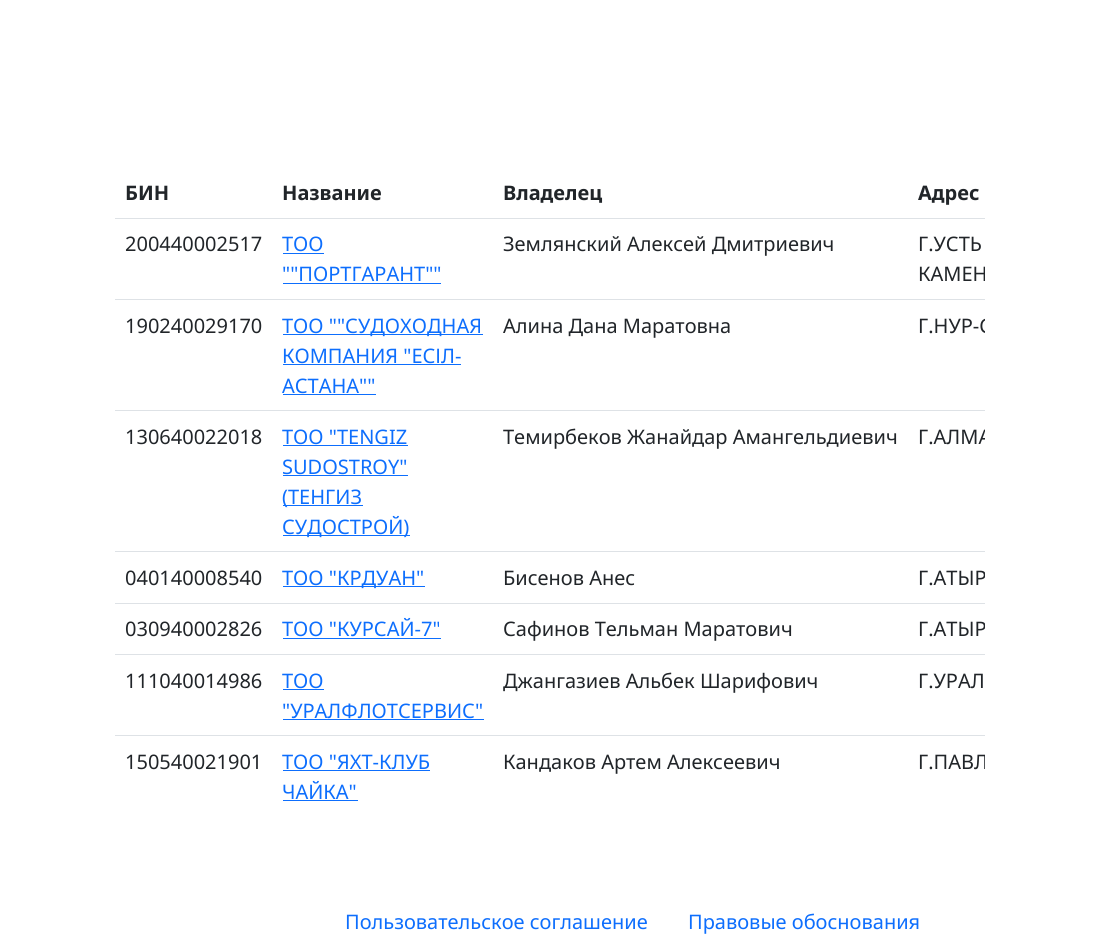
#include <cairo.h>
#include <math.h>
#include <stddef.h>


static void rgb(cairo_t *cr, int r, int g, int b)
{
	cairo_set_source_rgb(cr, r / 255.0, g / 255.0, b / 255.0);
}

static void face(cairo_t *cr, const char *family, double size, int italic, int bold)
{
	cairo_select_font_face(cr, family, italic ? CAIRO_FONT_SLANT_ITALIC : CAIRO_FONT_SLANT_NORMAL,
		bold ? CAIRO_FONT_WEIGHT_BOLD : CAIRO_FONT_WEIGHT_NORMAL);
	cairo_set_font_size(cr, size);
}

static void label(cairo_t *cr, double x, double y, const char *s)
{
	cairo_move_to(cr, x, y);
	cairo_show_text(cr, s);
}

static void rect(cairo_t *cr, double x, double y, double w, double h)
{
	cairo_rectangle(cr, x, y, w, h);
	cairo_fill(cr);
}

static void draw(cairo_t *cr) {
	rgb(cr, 255, 255, 255);
	cairo_paint(cr);
	face(cr, "Noto Sans", 20, 0, 1);
	rgb(cr, 33, 37, 41);
	label(cr, 125, 200, "БИН");
	label(cr, 282, 200, "Название");
	label(cr, 503, 200, "Владелец");
	rgb(cr, 222, 226, 230);
	rect(cr, 115, 218, 870, 1);
	rgb(cr, 33, 37, 41);
	label(cr, 918, 200, "Адрес");
	face(cr, "Noto Sans", 20, 0, 0);
	label(cr, 125, 251, "200440002517");
	rgb(cr, 13, 110, 253);
	label(cr, 282, 251, "ТОО");
	rect(cr, 283, 253, 41, 1);
	label(cr, 282, 281, "\"\"ПОРТГАРАНТ\"\"");
	rect(cr, 283, 283, 158, 1);
	rgb(cr, 33, 37, 41);
	label(cr, 503, 251, "Землянский Алексей Дмитриевич");
	rgb(cr, 222, 226, 230);
	rect(cr, 115, 299, 870, 1);
	rgb(cr, 33, 37, 41);
	label(cr, 918, 251, "Г.УСТЬ");
	cairo_save(cr);
	cairo_rectangle(cr, 115, 168, 870, 668);
	cairo_clip(cr);
	label(cr, 918, 281, "КАМЕН");
	cairo_restore(cr);
	label(cr, 125, 333, "190240029170");
	rgb(cr, 13, 110, 253);
	rect(cr, 283, 334, 200, 1);
	label(cr, 282, 333, "ТОО \"\"СУДОХОДНАЯ");
	label(cr, 282, 363, "КОМПАНИЯ \"ЕСІЛ-");
	rect(cr, 283, 364, 178, 1);
	label(cr, 282, 393, "АСТАНА\"\"");
	rect(cr, 283, 394, 93, 1);
	rgb(cr, 33, 37, 41);
	label(cr, 503, 333, "Алина Дана Маратовна");
	rgb(cr, 222, 226, 230);
	rect(cr, 115, 410, 870, 1);
	cairo_save(cr);
	cairo_rectangle(cr, 115, 168, 870, 668);
	cairo_clip(cr);
	rgb(cr, 33, 37, 41);
	label(cr, 918, 333, "Г.НУР-С");
	cairo_restore(cr);
	rgb(cr, 33, 37, 41);
	label(cr, 125, 444, "130640022018");
	rgb(cr, 13, 110, 253);
	label(cr, 282, 444, "ТОО \"TENGIZ");
	rect(cr, 283, 445, 125, 1);
	label(cr, 282, 474, "SUDOSTROY\"");
	rect(cr, 283, 475, 125, 1);
	rect(cr, 283, 505, 80, 1);
	label(cr, 282, 504, "(ТЕНГИЗ");
	rect(cr, 283, 535, 127, 1);
	label(cr, 282, 534, "СУДОСТРОЙ)");
	rgb(cr, 33, 37, 41);
	label(cr, 503, 444, "Темирбеков Жанайдар Амангельдиевич");
	rgb(cr, 222, 226, 230);
	rect(cr, 115, 551, 870, 1);
	cairo_save(cr);
	cairo_rectangle(cr, 115, 168, 870, 668);
	cairo_clip(cr);
	rgb(cr, 33, 37, 41);
	label(cr, 918, 444, "Г.АЛМА");
	cairo_restore(cr);
	rgb(cr, 33, 37, 41);
	label(cr, 125, 585, "040140008540");
	rgb(cr, 13, 110, 253);
	rect(cr, 283, 586, 142, 1);
	label(cr, 282, 585, "ТОО \"КРДУАН\"");
	rgb(cr, 33, 37, 41);
	label(cr, 503, 585, "Бисенов Анес");
	rgb(cr, 222, 226, 230);
	rect(cr, 115, 603, 870, 1);
	cairo_save(cr);
	cairo_rectangle(cr, 115, 168, 870, 668);
	cairo_clip(cr);
	rgb(cr, 33, 37, 41);
	label(cr, 918, 585, "Г.АТЫР");
	cairo_restore(cr);
	rgb(cr, 33, 37, 41);
	label(cr, 125, 636, "030940002826");
	rgb(cr, 13, 110, 253);
	label(cr, 282, 636, "ТОО \"КУРСАЙ-7\"");
	rect(cr, 283, 638, 158, 1);
	rgb(cr, 33, 37, 41);
	label(cr, 503, 636, "Сафинов Тельман Маратович");
	rgb(cr, 222, 226, 230);
	rect(cr, 115, 654, 870, 1);
	cairo_save(cr);
	cairo_rectangle(cr, 115, 168, 870, 668);
	cairo_clip(cr);
	rgb(cr, 33, 37, 41);
	label(cr, 918, 636, "Г.АТЫР");
	cairo_restore(cr);
	rgb(cr, 33, 37, 41);
	label(cr, 125, 688, "111040014986");
	rgb(cr, 13, 110, 253);
	label(cr, 282, 688, "ТОО");
	rect(cr, 283, 689, 41, 1);
	label(cr, 282, 718, "\"УРАЛФЛОТСЕРВИС\"");
	rect(cr, 283, 719, 201, 1);
	rgb(cr, 33, 37, 41);
	label(cr, 503, 688, "Джангазиев Альбек Шарифович");
	rgb(cr, 222, 226, 230);
	rect(cr, 115, 735, 870, 1);
	rgb(cr, 33, 37, 41);
	label(cr, 918, 688, "Г.УРАЛ");
	label(cr, 125, 769, "150540021901");
	rgb(cr, 13, 110, 253);
	label(cr, 282, 769, "ТОО \"ЯХТ-КЛУБ");
	rect(cr, 283, 770, 147, 1);
	label(cr, 282, 799, "ЧАЙКА\"");
	rect(cr, 283, 800, 75, 1);
	rgb(cr, 33, 37, 41);
	label(cr, 503, 769, "Кандаков Артем Алексеевич");
	cairo_save(cr);
	cairo_rectangle(cr, 115, 168, 870, 668);
	cairo_clip(cr);
	label(cr, 918, 769, "Г.ПАВЛ");
	cairo_restore(cr);
	rgb(cr, 13, 110, 253);
	label(cr, 345, 929, "Пользовательское соглашение");
	label(cr, 688, 929, "Правовые обоснования");
}

int main(void) {
	cairo_surface_t *surface = cairo_image_surface_create(CAIRO_FORMAT_RGB24, 1100, 941);
	cairo_t *cr = cairo_create(surface);
	cairo_font_options_t *options = cairo_font_options_create();
	cairo_font_options_set_hint_metrics(options, CAIRO_HINT_METRICS_OFF);
	cairo_font_options_set_hint_style(options, CAIRO_HINT_STYLE_NONE);
	cairo_set_font_options(cr, options);
	cairo_set_miter_limit(cr, 4);
	draw(cr);
	cairo_surface_write_to_png(surface, "render.png");
	cairo_font_options_destroy(options);
	cairo_destroy(cr);
	cairo_surface_destroy(surface);
	return 0;
}
